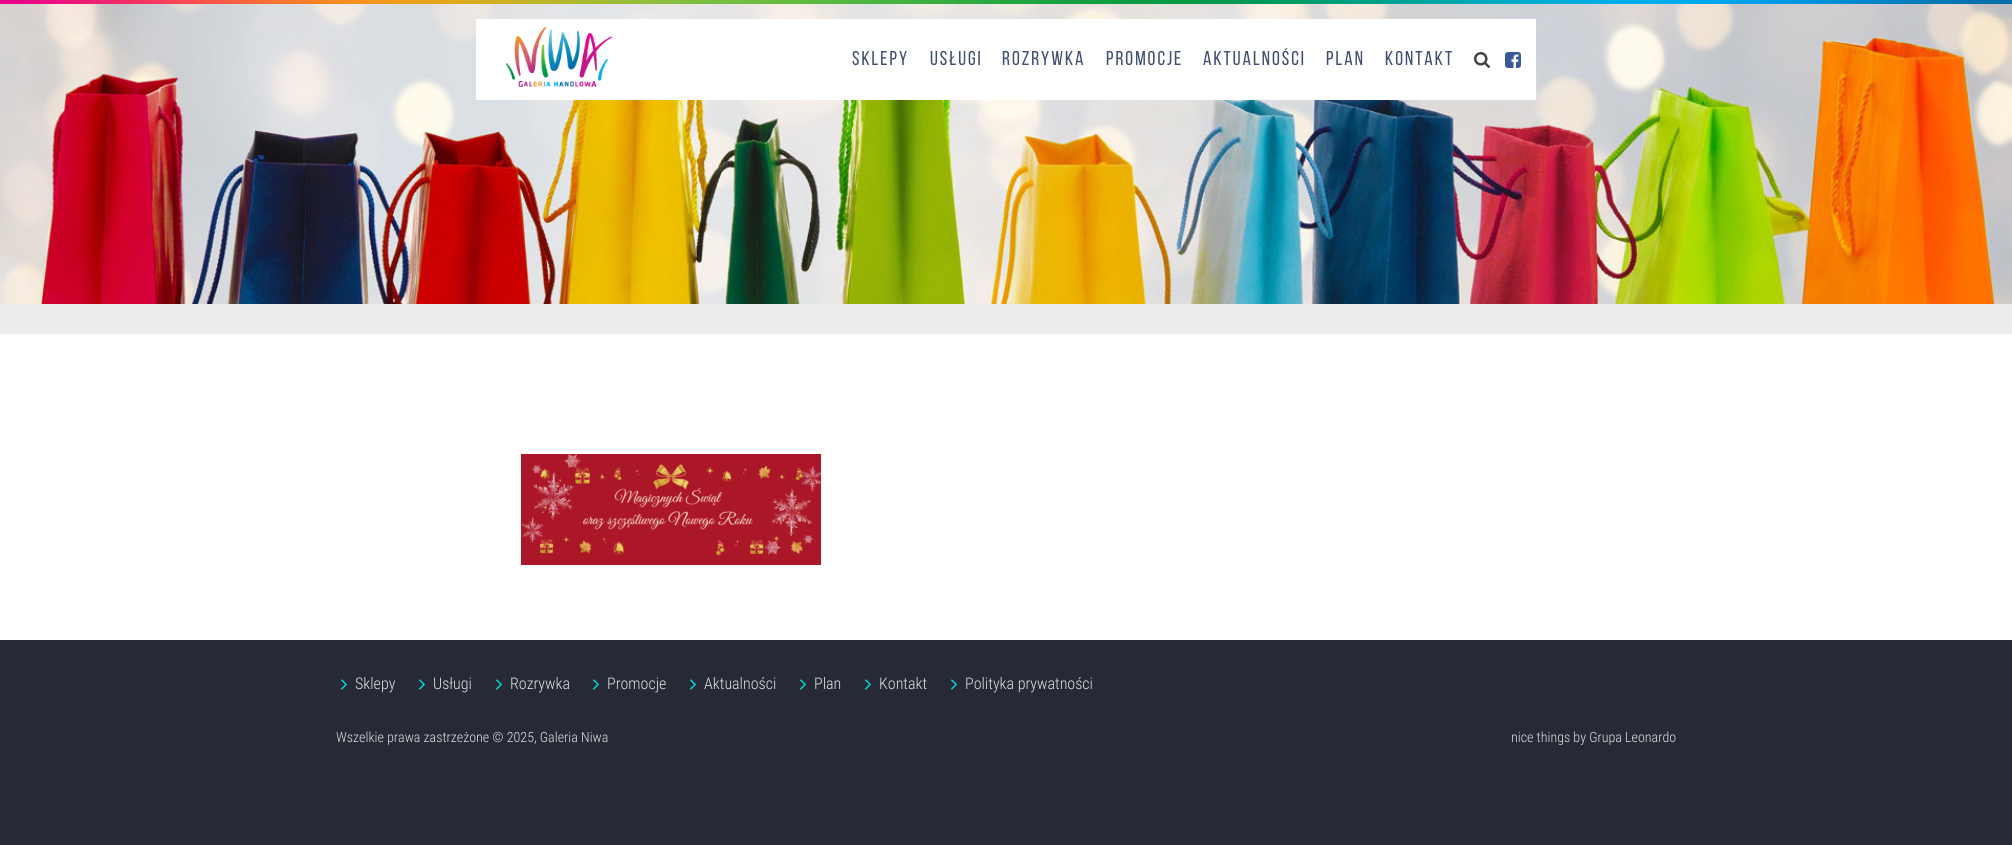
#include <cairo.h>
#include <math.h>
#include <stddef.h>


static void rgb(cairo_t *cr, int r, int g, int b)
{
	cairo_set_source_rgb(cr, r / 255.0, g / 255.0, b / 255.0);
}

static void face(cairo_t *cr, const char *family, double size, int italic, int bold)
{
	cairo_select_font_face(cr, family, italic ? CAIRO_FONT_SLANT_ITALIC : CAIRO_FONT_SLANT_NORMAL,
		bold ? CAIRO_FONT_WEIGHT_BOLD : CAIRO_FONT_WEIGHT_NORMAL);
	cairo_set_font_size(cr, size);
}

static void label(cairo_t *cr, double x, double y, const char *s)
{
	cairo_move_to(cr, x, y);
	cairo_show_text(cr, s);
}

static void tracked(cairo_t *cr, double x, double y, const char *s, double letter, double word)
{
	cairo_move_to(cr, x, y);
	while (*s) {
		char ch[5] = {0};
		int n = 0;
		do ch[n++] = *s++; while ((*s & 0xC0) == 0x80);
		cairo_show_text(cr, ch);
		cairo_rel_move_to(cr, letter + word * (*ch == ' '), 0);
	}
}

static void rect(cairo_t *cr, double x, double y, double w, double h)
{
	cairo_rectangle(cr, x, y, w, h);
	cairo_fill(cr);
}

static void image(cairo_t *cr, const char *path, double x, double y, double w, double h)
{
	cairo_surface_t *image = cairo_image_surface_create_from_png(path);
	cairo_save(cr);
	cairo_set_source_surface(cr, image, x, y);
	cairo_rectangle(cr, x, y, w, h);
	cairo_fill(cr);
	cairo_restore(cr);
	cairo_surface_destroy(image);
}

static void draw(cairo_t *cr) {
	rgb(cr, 38, 42, 54);
	cairo_paint(cr);
	image(cr, "image0.png", 0, 0, 2012, 4);
	image(cr, "image1.png", 0, 4, 2012, 300);
	rgb(cr, 255, 255, 255);
	rect(cr, 476, 19, 1060, 81);
	image(cr, "image2.png", 506, 27, 106, 60);
	face(cr, "Bebas Neue", 20, 0, 0);
	rgb(cr, 64, 78, 112);
	tracked(cr, 852, 65, "Sklepy", 2, 0);
	tracked(cr, 930, 65, "Usługi", 2, 0);
	tracked(cr, 1002, 65, "Rozrywka", 2, 0);
	tracked(cr, 1106, 65, "Promocje", 2, 0);
	tracked(cr, 1203, 65, "Aktualności", 2, 0);
	tracked(cr, 1326, 65, "Plan", 2, 0);
	tracked(cr, 1385, 65, "Kontakt", 2, 0);
	image(cr, "image3.png", 1474, 52, 16, 16);
	image(cr, "image4.png", 1505, 52, 16, 16);
	rgb(cr, 255, 255, 255);
	rect(cr, 0, 334, 2012, 306);
	rgb(cr, 237, 237, 237);
	rect(cr, 0, 304, 2012, 30);
	image(cr, "image5.png", 521, 454, 300, 111);
	image(cr, "image6.png", 341, 679, 6, 11);
	face(cr, "Roboto Condensed Light", 16, 0, 0);
	rgb(cr, 224, 224, 224);
	label(cr, 355, 689, "Sklepy");
	image(cr, "image6.png", 419, 679, 6, 11);
	label(cr, 433, 689, "Usługi");
	image(cr, "image6.png", 496, 679, 6, 11);
	label(cr, 510, 689, "Rozrywka");
	image(cr, "image6.png", 593, 679, 6, 11);
	label(cr, 607, 689, "Promocje");
	image(cr, "image6.png", 690, 679, 6, 11);
	label(cr, 704, 689, "Aktualności");
	image(cr, "image6.png", 800, 679, 6, 11);
	label(cr, 814, 689, "Plan");
	image(cr, "image6.png", 865, 679, 6, 11);
	label(cr, 879, 689, "Kontakt");
	image(cr, "image6.png", 951, 679, 6, 11);
	label(cr, 965, 689, "Polityka prywatności");
	face(cr, "Roboto Condensed Light", 14, 0, 0);
	label(cr, 336, 742, "Wszelkie prawa zastrzeżone © 2025, Galeria Niwa");
	label(cr, 1511, 742, "nice things by Grupa Leonardo");
}

int main(void) {
	cairo_surface_t *surface = cairo_image_surface_create(CAIRO_FORMAT_RGB24, 2012, 845);
	cairo_t *cr = cairo_create(surface);
	cairo_font_options_t *options = cairo_font_options_create();
	cairo_font_options_set_hint_metrics(options, CAIRO_HINT_METRICS_OFF);
	cairo_font_options_set_hint_style(options, CAIRO_HINT_STYLE_NONE);
	cairo_set_font_options(cr, options);
	cairo_set_miter_limit(cr, 4);
	draw(cr);
	cairo_surface_write_to_png(surface, "render.png");
	cairo_font_options_destroy(options);
	cairo_destroy(cr);
	cairo_surface_destroy(surface);
	return 0;
}
